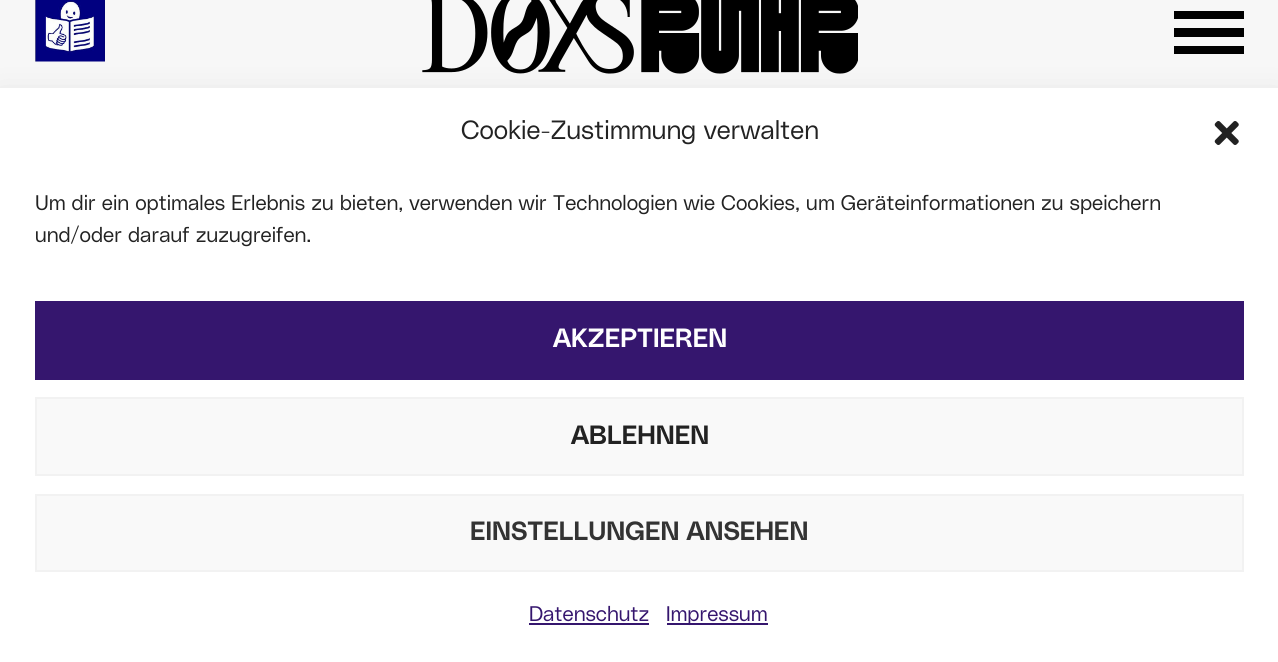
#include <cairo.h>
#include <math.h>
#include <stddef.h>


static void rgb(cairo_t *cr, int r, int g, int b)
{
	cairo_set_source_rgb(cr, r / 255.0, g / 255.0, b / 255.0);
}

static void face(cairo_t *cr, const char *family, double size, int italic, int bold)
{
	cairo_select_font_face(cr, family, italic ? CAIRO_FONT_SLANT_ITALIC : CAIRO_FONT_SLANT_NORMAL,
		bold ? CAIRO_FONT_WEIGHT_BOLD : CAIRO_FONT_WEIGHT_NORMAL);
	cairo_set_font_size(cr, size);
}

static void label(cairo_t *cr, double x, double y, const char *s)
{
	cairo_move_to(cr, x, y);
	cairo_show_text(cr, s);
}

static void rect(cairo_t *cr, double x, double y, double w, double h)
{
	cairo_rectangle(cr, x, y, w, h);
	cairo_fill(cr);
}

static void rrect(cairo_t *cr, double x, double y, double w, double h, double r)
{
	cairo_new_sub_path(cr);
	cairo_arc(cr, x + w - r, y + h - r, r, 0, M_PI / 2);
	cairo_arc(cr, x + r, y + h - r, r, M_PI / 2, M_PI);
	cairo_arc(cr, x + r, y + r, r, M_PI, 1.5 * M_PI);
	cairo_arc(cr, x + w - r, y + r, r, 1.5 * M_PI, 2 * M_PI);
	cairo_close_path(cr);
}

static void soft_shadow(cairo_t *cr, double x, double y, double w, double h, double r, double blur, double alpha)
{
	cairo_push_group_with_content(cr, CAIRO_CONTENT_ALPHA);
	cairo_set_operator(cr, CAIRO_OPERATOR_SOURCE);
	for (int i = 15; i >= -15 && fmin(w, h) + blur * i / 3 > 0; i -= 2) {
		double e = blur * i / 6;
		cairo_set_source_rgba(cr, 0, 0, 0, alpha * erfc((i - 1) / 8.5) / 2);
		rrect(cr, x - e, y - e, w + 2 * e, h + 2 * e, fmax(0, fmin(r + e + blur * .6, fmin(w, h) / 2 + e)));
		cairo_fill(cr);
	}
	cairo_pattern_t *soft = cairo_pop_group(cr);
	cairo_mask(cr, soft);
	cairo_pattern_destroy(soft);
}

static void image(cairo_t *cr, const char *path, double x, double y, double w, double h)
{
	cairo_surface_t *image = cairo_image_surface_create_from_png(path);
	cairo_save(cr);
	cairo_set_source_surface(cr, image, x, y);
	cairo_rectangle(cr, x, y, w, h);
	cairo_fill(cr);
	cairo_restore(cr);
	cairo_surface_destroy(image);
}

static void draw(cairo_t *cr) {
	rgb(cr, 247, 247, 247);
	cairo_paint(cr);
	image(cr, "image1.png", 422, 0, 436, 74);
	rgb(cr, 0, 0, 0);
	rect(cr, 1174, 46, 70, 8);
	rgb(cr, 0, 0, 0);
	soft_shadow(cr, 0, 105, 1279, 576, 0, 17.5, 0.19);
	image(cr, "image0.png", 35, 0, 70, 62);
	rgb(cr, 0, 0, 0);
	rect(cr, 1174, 28, 70, 9);
	rect(cr, 1174, 11, 70, 8);
	rgb(cr, 255, 255, 255);
	rect(cr, 0, 88, 1278, 574);
	face(cr, "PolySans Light", 26.25, 0, 0);
	rgb(cr, 34, 34, 34);
	label(cr, 461, 139, "Cookie-Zustimmung verwalten");
	image(cr, "image2.png", 1214, 121, 25, 24);
	face(cr, "PolySans Light", 21, 0, 0);
	label(cr, 35, 210, "Um dir ein optimales Erlebnis zu bieten, verwenden wir Technologien wie Cookies, um Geräteinformationen zu speichern");
	label(cr, 35, 242, "und/oder darauf zuzugreifen.");
	rgb(cr, 53, 22, 110);
	rect(cr, 35, 301, 1209, 79);
	face(cr, "PolySans SemiBold", 26.25, 0, 0);
	rgb(cr, 255, 255, 255);
	label(cr, 553, 347, "AKZEPTIEREN");
	rgb(cr, 249, 249, 249);
	cairo_rectangle(cr, 36, 398, 1207, 77);
	cairo_fill_preserve(cr);
	rgb(cr, 242, 242, 242);
	cairo_stroke(cr);
	rgb(cr, 34, 34, 34);
	label(cr, 571, 444, "ABLEHNEN");
	rgb(cr, 249, 249, 249);
	cairo_rectangle(cr, 36, 495, 1207, 76);
	cairo_fill_preserve(cr);
	rgb(cr, 242, 242, 242);
	cairo_stroke(cr);
	rgb(cr, 51, 51, 51);
	label(cr, 470, 540, "EINSTELLUNGEN ANSEHEN");
	face(cr, "PolySans Light", 21, 0, 0);
	rgb(cr, 53, 22, 110);
	label(cr, 529, 621, "Datenschutz");
	rect(cr, 529, 623, 120, 2);
	rect(cr, 667, 623, 101, 2);
	label(cr, 666, 621, "Impressum");
}

int main(void) {
	cairo_surface_t *surface = cairo_image_surface_create(CAIRO_FORMAT_RGB24, 1278, 662);
	cairo_t *cr = cairo_create(surface);
	cairo_font_options_t *options = cairo_font_options_create();
	cairo_font_options_set_hint_metrics(options, CAIRO_HINT_METRICS_OFF);
	cairo_font_options_set_hint_style(options, CAIRO_HINT_STYLE_NONE);
	cairo_set_font_options(cr, options);
	cairo_set_miter_limit(cr, 4);
	draw(cr);
	cairo_surface_write_to_png(surface, "render.png");
	cairo_font_options_destroy(options);
	cairo_destroy(cr);
	cairo_surface_destroy(surface);
	return 0;
}
